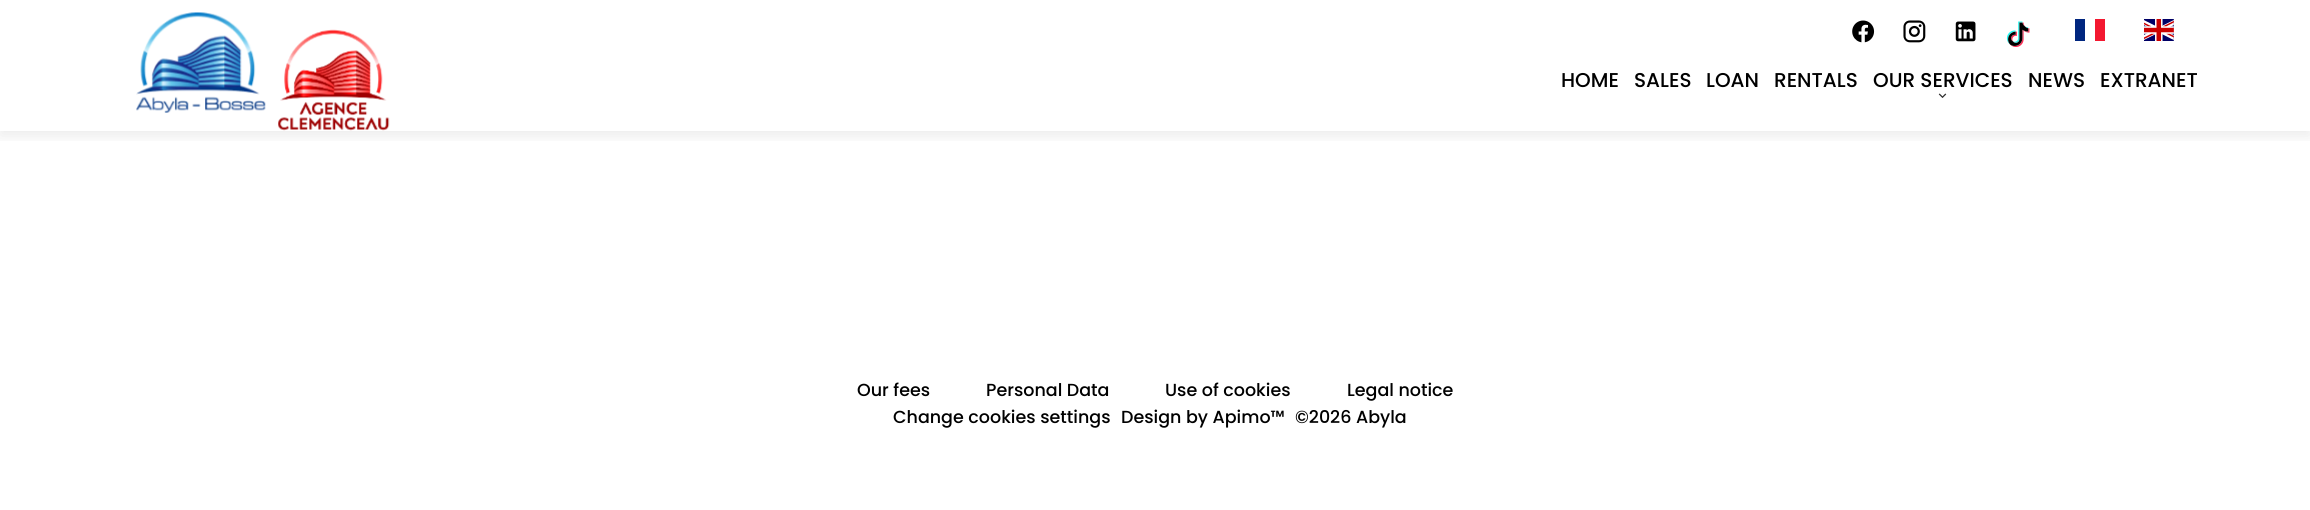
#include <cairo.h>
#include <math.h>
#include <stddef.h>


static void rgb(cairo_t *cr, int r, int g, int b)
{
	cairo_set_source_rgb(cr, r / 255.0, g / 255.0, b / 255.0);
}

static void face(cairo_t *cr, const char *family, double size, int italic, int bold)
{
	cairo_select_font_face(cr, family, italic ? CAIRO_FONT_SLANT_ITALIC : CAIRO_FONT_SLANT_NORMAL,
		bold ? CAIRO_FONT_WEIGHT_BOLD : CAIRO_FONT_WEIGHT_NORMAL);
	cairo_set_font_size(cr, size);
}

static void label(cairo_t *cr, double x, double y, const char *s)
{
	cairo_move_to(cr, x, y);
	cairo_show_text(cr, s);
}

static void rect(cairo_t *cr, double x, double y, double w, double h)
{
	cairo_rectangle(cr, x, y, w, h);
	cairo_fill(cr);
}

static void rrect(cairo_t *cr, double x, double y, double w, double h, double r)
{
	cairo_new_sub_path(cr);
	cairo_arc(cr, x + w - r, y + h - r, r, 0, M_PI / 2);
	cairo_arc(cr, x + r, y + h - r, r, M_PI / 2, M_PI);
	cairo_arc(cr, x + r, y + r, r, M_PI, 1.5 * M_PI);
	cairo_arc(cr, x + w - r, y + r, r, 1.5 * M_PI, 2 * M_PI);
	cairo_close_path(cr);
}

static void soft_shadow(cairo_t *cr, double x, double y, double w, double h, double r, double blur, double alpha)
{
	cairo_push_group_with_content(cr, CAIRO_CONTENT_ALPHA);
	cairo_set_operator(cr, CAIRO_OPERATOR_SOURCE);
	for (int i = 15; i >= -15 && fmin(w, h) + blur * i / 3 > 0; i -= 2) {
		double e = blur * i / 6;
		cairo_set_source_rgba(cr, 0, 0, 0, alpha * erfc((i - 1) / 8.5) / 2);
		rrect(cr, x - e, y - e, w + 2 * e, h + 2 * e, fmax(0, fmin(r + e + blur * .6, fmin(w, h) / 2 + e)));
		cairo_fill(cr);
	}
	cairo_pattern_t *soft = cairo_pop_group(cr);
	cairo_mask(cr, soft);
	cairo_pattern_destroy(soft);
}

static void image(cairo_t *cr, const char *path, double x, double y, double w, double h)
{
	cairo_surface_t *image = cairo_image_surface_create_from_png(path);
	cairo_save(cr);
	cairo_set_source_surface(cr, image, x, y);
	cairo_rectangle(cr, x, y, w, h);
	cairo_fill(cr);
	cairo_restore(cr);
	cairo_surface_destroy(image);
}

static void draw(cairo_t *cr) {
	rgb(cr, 255, 255, 255);
	cairo_paint(cr);
	cairo_save(cr);
	cairo_rectangle(cr, 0, 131, 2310, 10);
	cairo_clip(cr);
	rgb(cr, 0, 0, 0);
	soft_shadow(cr, 0, 5, 2310, 131, 0, 7.5, 0.08);
	cairo_restore(cr);
	image(cr, "image0.png", 136, 12, 130, 101);
	image(cr, "image1.png", 278, 29, 112, 102);
	image(cr, "image2.png", 1852, 20, 23, 23);
	image(cr, "image3.png", 1903, 20, 23, 23);
	image(cr, "image4.png", 1955, 21, 21, 21);
	image(cr, "image5.png", 2006, 21, 24, 26);
	rgb(cr, 0, 38, 127);
	rect(cr, 2075, 19, 10, 22);
	rgb(cr, 243, 24, 48);
	rect(cr, 2095, 19, 10, 22);
	image(cr, "image6.png", 2144, 19, 30, 22);
	face(cr, "Poppins Medium", 20, 0, 0);
	rgb(cr, 0, 0, 0);
	label(cr, 1561, 87, "HOME");
	label(cr, 1634, 87, "SALES");
	label(cr, 1706, 87, "LOAN");
	label(cr, 1774, 87, "RENTALS");
	label(cr, 1873, 87, "OUR SERVICES");
	image(cr, "image7.png", 1938, 93, 9, 5);
	label(cr, 2028, 87, "NEWS");
	label(cr, 2100, 87, "EXTRANET");
	face(cr, "Poppins Medium", 17.5, 0, 0);
	label(cr, 857, 396, "Our fees");
	label(cr, 986, 396, "Personal Data");
	label(cr, 1165, 396, "Use of cookies");
	label(cr, 1347, 396, "Legal notice");
	label(cr, 893, 423, "Change cookies settings");
	label(cr, 1121, 423, "Design by Apimo™");
	label(cr, 1295, 423, "©2026 Abyla");
}

int main(void) {
	cairo_surface_t *surface = cairo_image_surface_create(CAIRO_FORMAT_RGB24, 2310, 510);
	cairo_t *cr = cairo_create(surface);
	cairo_font_options_t *options = cairo_font_options_create();
	cairo_font_options_set_hint_metrics(options, CAIRO_HINT_METRICS_OFF);
	cairo_font_options_set_hint_style(options, CAIRO_HINT_STYLE_NONE);
	cairo_set_font_options(cr, options);
	cairo_set_miter_limit(cr, 4);
	draw(cr);
	cairo_surface_write_to_png(surface, "render.png");
	cairo_font_options_destroy(options);
	cairo_destroy(cr);
	cairo_surface_destroy(surface);
	return 0;
}
